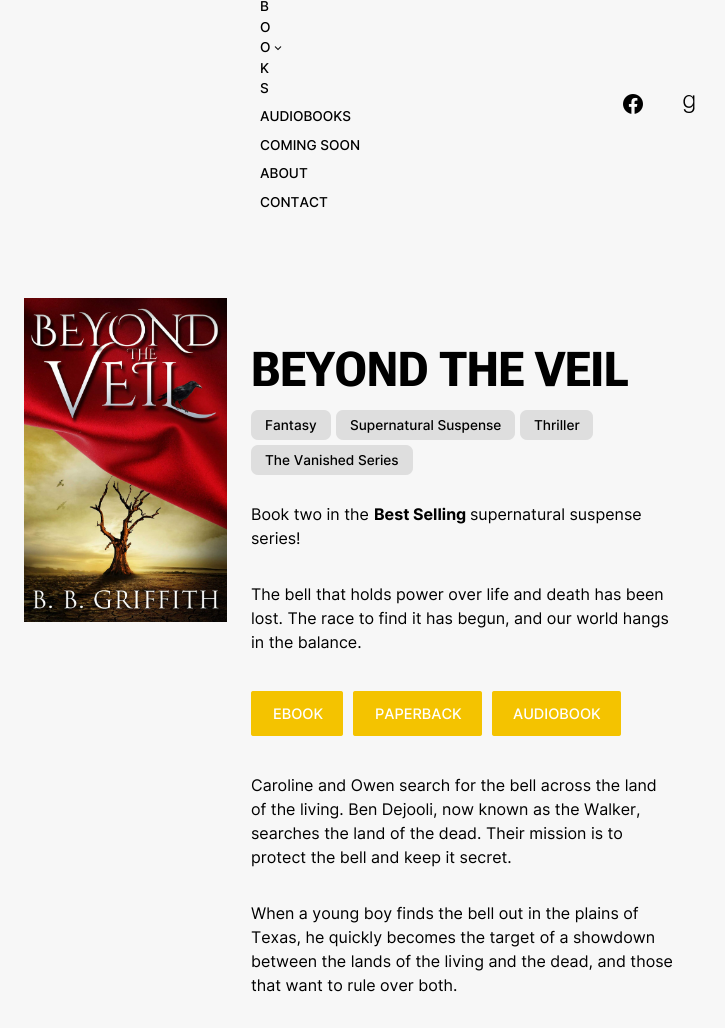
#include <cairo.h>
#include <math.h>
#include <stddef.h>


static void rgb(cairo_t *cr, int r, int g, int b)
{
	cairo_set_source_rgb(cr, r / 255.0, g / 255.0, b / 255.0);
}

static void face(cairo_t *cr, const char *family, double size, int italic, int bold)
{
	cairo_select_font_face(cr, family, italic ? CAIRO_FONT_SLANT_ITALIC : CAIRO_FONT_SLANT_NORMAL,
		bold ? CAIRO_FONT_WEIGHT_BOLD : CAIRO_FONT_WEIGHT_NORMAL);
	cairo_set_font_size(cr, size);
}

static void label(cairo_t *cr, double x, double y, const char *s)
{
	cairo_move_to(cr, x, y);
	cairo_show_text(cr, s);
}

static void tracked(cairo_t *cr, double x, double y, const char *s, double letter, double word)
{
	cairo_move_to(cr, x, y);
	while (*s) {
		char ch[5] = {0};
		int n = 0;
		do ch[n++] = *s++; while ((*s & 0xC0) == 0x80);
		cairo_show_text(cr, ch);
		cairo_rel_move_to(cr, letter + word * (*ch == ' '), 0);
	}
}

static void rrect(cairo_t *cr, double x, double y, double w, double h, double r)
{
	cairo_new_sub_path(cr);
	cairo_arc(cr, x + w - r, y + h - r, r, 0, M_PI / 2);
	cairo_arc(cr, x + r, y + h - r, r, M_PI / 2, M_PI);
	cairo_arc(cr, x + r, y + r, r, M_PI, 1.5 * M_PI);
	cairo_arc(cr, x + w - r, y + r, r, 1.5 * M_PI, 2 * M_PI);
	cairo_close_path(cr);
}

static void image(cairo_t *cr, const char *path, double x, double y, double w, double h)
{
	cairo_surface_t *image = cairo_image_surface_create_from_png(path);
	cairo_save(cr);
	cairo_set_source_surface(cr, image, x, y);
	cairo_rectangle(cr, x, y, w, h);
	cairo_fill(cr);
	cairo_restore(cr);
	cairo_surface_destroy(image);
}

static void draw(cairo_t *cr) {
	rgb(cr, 247, 247, 247);
	cairo_paint(cr);
	face(cr, "Inter Medium", 13.6, 0, 0);
	rgb(cr, 0, 0, 0);
	label(cr, 260, 11, "B");
	label(cr, 260, 32, "O");
	label(cr, 260, 52, "O");
	label(cr, 260, 73, "K");
	label(cr, 260, 93, "S");
	cairo_new_path(cr);
	cairo_move_to(cr, 275, 46.5);
	cairo_line_to(cr, 278, 49.5);
	cairo_line_to(cr, 281, 46.5);
	cairo_set_line_width(cr, 1);
	cairo_stroke(cr);
	label(cr, 260, 121, "AUDIOBOOKS");
	label(cr, 260, 150, "COMING SOON");
	label(cr, 260, 178, "ABOUT");
	label(cr, 260, 207, "CONTACT");
	image(cr, "image0.png", 623, 94, 20, 20);
	image(cr, "image1.png", 683, 95, 12, 18);
	image(cr, "image2.png", 24, 298, 203, 324);
	face(cr, "Roboto Flex", 48, 0, 1);
	tracked(cr, 251, 386, "BEYOND THE VEIL", -0.25, 0);
	rgb(cr, 222, 222, 222);
	rrect(cr, 251, 410, 80, 30, 7);
	cairo_fill(cr);
	face(cr, "Inter Medium", 13.6, 0, 0);
	rgb(cr, 0, 0, 0);
	label(cr, 265, 430, "Fantasy");
	rgb(cr, 222, 222, 222);
	rrect(cr, 336, 410, 179, 30, 7);
	cairo_fill(cr);
	rgb(cr, 0, 0, 0);
	label(cr, 350, 430, "Supernatural Suspense");
	rgb(cr, 222, 222, 222);
	rrect(cr, 520, 410, 73, 30, 7);
	cairo_fill(cr);
	rgb(cr, 0, 0, 0);
	label(cr, 534, 430, "Thriller");
	rgb(cr, 222, 222, 222);
	rrect(cr, 251, 445, 162, 30, 7);
	cairo_fill(cr);
	rgb(cr, 0, 0, 0);
	label(cr, 265, 465, "The Vanished Series");
	face(cr, "Inter", 16, 0, 0);
	label(cr, 251, 520, "Book two in the");
	face(cr, "Inter", 16, 0, 1);
	label(cr, 374, 520, "Best Selling");
	face(cr, "Inter", 16, 0, 0);
	label(cr, 470, 520, "supernatural suspense");
	label(cr, 251, 544, "series!");
	label(cr, 251, 600, "The bell that holds power over life and death has been");
	label(cr, 251, 624, "lost. The race to find it has begun, and our world hangs");
	label(cr, 251, 648, "in the balance.");
	rgb(cr, 244, 195, 0);
	rrect(cr, 251, 691, 92, 45, 2);
	cairo_fill(cr);
	face(cr, "Inter Medium", 14.5, 0, 0);
	rgb(cr, 255, 255, 255);
	label(cr, 273, 719, "EBOOK");
	rgb(cr, 244, 195, 0);
	rrect(cr, 353, 691, 129, 45, 2);
	cairo_fill(cr);
	rgb(cr, 255, 255, 255);
	label(cr, 375, 719, "PAPERBACK");
	rgb(cr, 244, 195, 0);
	rrect(cr, 492, 691, 129, 45, 2);
	cairo_fill(cr);
	rgb(cr, 255, 255, 255);
	label(cr, 513, 719, "AUDIOBOOK");
	face(cr, "Inter", 16, 0, 0);
	rgb(cr, 0, 0, 0);
	label(cr, 251, 791, "Caroline and Owen search for the bell across the land");
	label(cr, 251, 815, "of the living. Ben Dejooli, now known as the Walker,");
	label(cr, 251, 839, "searches the land of the dead. Their mission is to");
	label(cr, 251, 863, "protect the bell and keep it secret.");
	label(cr, 251, 919, "When a young boy finds the bell out in the plains of");
	label(cr, 251, 943, "Texas, he quickly becomes the target of a showdown");
	label(cr, 251, 967, "between the lands of the living and the dead, and those");
	label(cr, 251, 991, "that want to rule over both.");
}

int main(void) {
	cairo_surface_t *surface = cairo_image_surface_create(CAIRO_FORMAT_RGB24, 725, 1028);
	cairo_t *cr = cairo_create(surface);
	cairo_font_options_t *options = cairo_font_options_create();
	cairo_font_options_set_hint_metrics(options, CAIRO_HINT_METRICS_OFF);
	cairo_font_options_set_hint_style(options, CAIRO_HINT_STYLE_NONE);
	cairo_set_font_options(cr, options);
	cairo_set_miter_limit(cr, 4);
	draw(cr);
	cairo_surface_write_to_png(surface, "render.png");
	cairo_font_options_destroy(options);
	cairo_destroy(cr);
	cairo_surface_destroy(surface);
	return 0;
}
